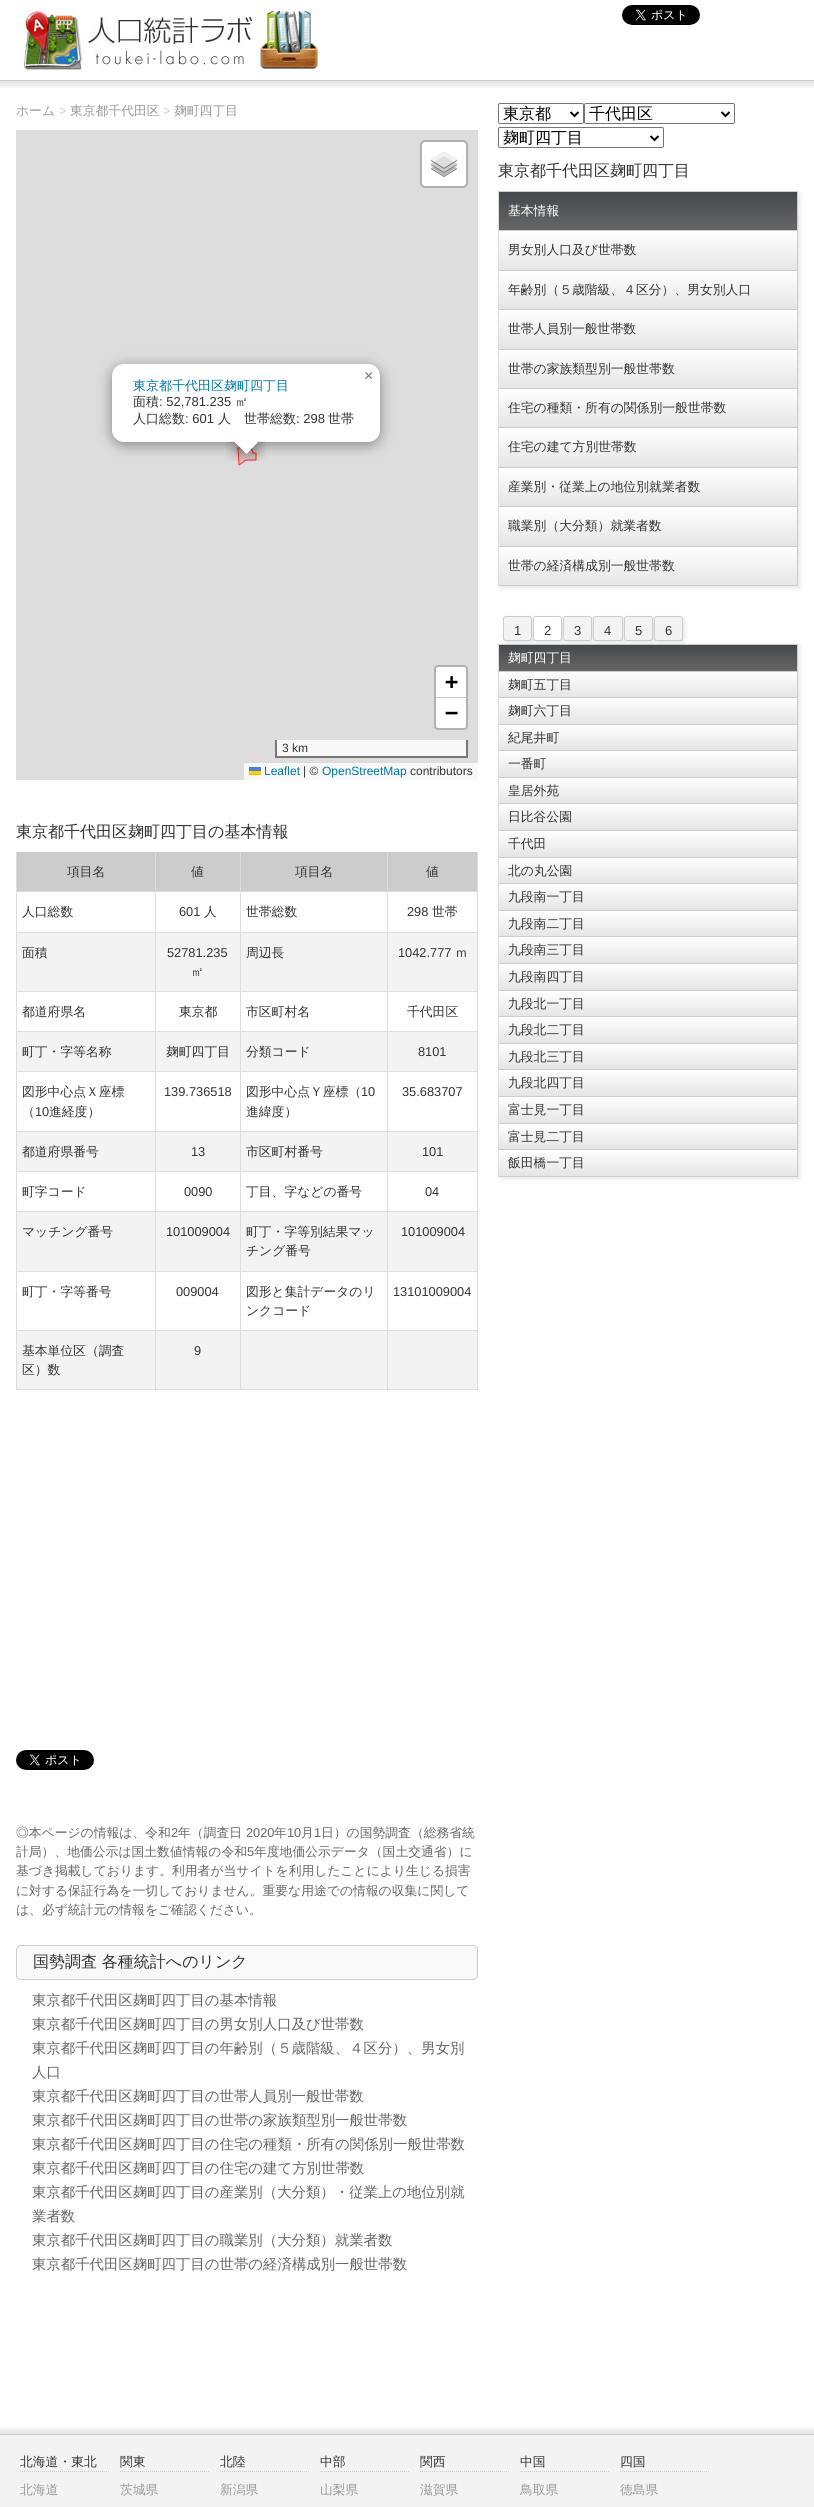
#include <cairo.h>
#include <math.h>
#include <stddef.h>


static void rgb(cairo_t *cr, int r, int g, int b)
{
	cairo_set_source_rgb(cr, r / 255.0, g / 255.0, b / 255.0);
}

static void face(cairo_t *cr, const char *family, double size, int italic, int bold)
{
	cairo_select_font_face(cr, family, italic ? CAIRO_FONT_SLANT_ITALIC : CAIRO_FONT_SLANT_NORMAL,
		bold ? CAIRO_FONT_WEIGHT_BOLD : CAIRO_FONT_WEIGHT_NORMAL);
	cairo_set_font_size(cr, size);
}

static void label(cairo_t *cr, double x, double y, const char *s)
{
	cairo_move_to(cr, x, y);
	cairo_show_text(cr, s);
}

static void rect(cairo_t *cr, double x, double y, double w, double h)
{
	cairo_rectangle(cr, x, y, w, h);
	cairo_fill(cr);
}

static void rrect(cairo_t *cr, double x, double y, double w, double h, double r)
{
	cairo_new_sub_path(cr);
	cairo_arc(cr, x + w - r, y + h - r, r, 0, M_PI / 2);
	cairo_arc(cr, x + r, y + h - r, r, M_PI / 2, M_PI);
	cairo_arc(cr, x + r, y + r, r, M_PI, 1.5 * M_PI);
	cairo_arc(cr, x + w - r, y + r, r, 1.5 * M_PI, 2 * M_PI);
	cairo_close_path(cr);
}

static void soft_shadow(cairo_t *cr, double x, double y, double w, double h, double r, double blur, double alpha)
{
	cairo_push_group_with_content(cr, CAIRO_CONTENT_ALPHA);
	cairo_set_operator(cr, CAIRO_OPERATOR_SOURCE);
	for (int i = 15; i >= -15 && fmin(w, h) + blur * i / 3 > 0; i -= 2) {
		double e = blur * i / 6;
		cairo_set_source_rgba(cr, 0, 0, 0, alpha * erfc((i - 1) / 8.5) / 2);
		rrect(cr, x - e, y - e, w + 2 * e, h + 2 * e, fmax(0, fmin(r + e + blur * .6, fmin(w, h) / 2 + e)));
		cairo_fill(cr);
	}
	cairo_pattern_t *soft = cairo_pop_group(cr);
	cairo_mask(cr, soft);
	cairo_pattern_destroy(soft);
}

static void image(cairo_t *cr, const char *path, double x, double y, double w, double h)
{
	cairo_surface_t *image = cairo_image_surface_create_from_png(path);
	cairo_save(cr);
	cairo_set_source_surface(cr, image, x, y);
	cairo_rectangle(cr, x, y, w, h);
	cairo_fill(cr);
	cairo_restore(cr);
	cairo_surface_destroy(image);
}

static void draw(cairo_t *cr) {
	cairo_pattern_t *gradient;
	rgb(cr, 255, 255, 255);
	cairo_paint(cr);
	cairo_save(cr);
	cairo_rectangle(cr, 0, 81, 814, 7);
	cairo_clip(cr);
	rgb(cr, 0, 0, 0);
	soft_shadow(cr, -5, -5, 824, 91, 0, 2.5, 0.1);
	cairo_restore(cr);
	rgb(cr, 204, 204, 204);
	rect(cr, 0, 80, 814, 1);
	image(cr, "image0.png", 20, 8, 300, 64);
	image(cr, "image1.png", 622, 5, 78, 20);
	face(cr, "WenQuanYi Zen Hei Medium", 12.8, 0, 0);
	rgb(cr, 153, 153, 153);
	label(cr, 16, 115, "ホーム");
	face(cr, "Liberation Sans", 12.8, 0, 0);
	rgb(cr, 204, 204, 204);
	label(cr, 59, 115, ">");
	face(cr, "WenQuanYi Zen Hei Medium", 12.8, 0, 0);
	rgb(cr, 153, 153, 153);
	label(cr, 70, 115, "東京都千代田区");
	face(cr, "Liberation Sans", 12.8, 0, 0);
	rgb(cr, 204, 204, 204);
	label(cr, 163, 115, ">");
	face(cr, "WenQuanYi Zen Hei Medium", 12.8, 0, 0);
	rgb(cr, 153, 153, 153);
	label(cr, 174, 115, "麹町四丁目");
	rgb(cr, 221, 221, 221);
	rect(cr, 16, 130, 462, 650);
	image(cr, "image2.png", 237, 447, 20, 19);
	rgb(cr, 0, 0, 0);
	soft_shadow(cr, 112, 367, 268, 78, 12, 7, 0.4);
	rgb(cr, 255, 255, 255);
	rrect(cr, 112, 364, 268, 78, 12);
	cairo_fill(cr);
	face(cr, "Liberation Sans", 16, 0, 0);
	rgb(cr, 117, 117, 117);
	label(cr, 364, 381, "×");
	face(cr, "WenQuanYi Zen Hei Medium", 13, 0, 0);
	rgb(cr, 0, 120, 168);
	label(cr, 133, 390, "東京都千代田区麹町四丁目");
	rgb(cr, 51, 51, 51);
	label(cr, 133, 406, "面積");
	face(cr, "Liberation Sans", 13, 0, 0);
	label(cr, 159, 406, ": 52,781.235");
	face(cr, "WenQuanYi Zen Hei Medium", 13, 0, 0);
	label(cr, 235, 406, "㎡");
	label(cr, 133, 423, "人口総数");
	face(cr, "Liberation Sans", 13, 0, 0);
	label(cr, 185, 423, ": 601");
	face(cr, "WenQuanYi Zen Hei Medium", 13, 0, 0);
	label(cr, 218, 423, "人　世帯総数");
	face(cr, "Liberation Sans", 13, 0, 0);
	label(cr, 296, 423, ": 298");
	face(cr, "WenQuanYi Zen Hei Medium", 13, 0, 0);
	label(cr, 328, 423, "世帯");
	cairo_save(cr);
	cairo_rectangle(cr, 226, 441, 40, 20);
	cairo_clip(cr);
	rgb(cr, 0, 0, 0);
	soft_shadow(cr, 237, 434, 19, 19, 0, 7, 0.4);
	cairo_restore(cr);
	cairo_save(cr);
	cairo_rectangle(cr, 226, 441, 40, 20);
	cairo_clip(cr);
	rgb(cr, 255, 255, 255);
	cairo_new_path(cr);
	cairo_move_to(cr, 246.5, 427.5);
	cairo_line_to(cr, 259.5, 440.5);
	cairo_line_to(cr, 246.5, 454);
	cairo_line_to(cr, 233, 440.5);
	cairo_close_path(cr);
	cairo_fill(cr);
	cairo_restore(cr);
	rgb(cr, 255, 255, 255);
	rrect(cr, 421, 141, 46, 46, 4);
	cairo_fill_preserve(cr);
	rgb(cr, 177, 177, 177);
	cairo_stroke(cr);
	image(cr, "image3.png", 431, 152, 26, 25);
	rrect(cr, 435, 666, 32, 63, 3);
	cairo_stroke(cr);
	rgb(cr, 255, 255, 255);
	cairo_new_path(cr);
	cairo_move_to(cr, 438, 667);
	cairo_line_to(cr, 464, 667);
	cairo_curve_to(cr, 465, 667, 466, 668, 466, 669);
	cairo_line_to(cr, 466, 698);
	cairo_line_to(cr, 436, 698);
	cairo_line_to(cr, 436, 669);
	cairo_curve_to(cr, 436, 668, 437, 667, 438, 667);
	cairo_close_path(cr);
	cairo_fill(cr);
	rgb(cr, 204, 204, 204);
	rect(cr, 436, 697, 30, 1);
	face(cr, "DejaVu Sans Mono", 22, 0, 1);
	rgb(cr, 0, 0, 0);
	label(cr, 445, 689, "+");
	rgb(cr, 255, 255, 255);
	cairo_new_path(cr);
	cairo_move_to(cr, 436, 698);
	cairo_line_to(cr, 466, 698);
	cairo_line_to(cr, 466, 726);
	cairo_curve_to(cr, 466, 727, 465, 728, 464, 728);
	cairo_line_to(cr, 438, 728);
	cairo_curve_to(cr, 437, 728, 436, 727, 436, 726);
	cairo_close_path(cr);
	cairo_fill(cr);
	rgb(cr, 0, 0, 0);
	label(cr, 445, 720, "−");
	rgb(cr, 248, 248, 248);
	rect(cr, 277, 740, 189, 16);
	rgb(cr, 119, 119, 119);
	rect(cr, 466, 740, 2, 18);
	rect(cr, 275, 756, 193, 2);
	rect(cr, 275, 740, 2, 18);
	face(cr, "Liberation Sans", 12, 0, 0);
	rgb(cr, 51, 51, 51);
	label(cr, 282, 752, "3 km");
	rgb(cr, 248, 248, 248);
	rect(cr, 244, 763, 234, 17);
	rgb(cr, 0, 120, 168);
	label(cr, 264, 775, "Leaflet");
	rgb(cr, 76, 123, 225);
	rect(cr, 249, 767, 12, 4);
	rgb(cr, 255, 213, 0);
	rect(cr, 249, 771, 12, 3);
	rgb(cr, 224, 188, 0);
	rect(cr, 249, 774, 12, 1);
	rgb(cr, 51, 51, 51);
	label(cr, 303, 775, "| ©");
	rgb(cr, 0, 120, 168);
	label(cr, 322, 775, "OpenStreetMap");
	rgb(cr, 51, 51, 51);
	label(cr, 410, 775, "contributors");
	face(cr, "WenQuanYi Zen Hei Medium", 16, 0, 0);
	label(cr, 16, 837, "東京都千代田区麹町四丁目の基本情報");
	rgb(cr, 221, 221, 221);
	rect(cr, 16, 891, 462, 1);
	rgb(cr, 204, 204, 204);
	rect(cr, 17, 852, 138, 39);
	face(cr, "WenQuanYi Zen Hei Medium", 12.8, 0, 0);
	rgb(cr, 51, 51, 51);
	label(cr, 67, 876, "項目名");
	rgb(cr, 204, 204, 204);
	rect(cr, 156, 852, 84, 39);
	rgb(cr, 51, 51, 51);
	label(cr, 191, 876, "値");
	rgb(cr, 204, 204, 204);
	rect(cr, 241, 852, 146, 39);
	rgb(cr, 51, 51, 51);
	label(cr, 295, 876, "項目名");
	rgb(cr, 204, 204, 204);
	rect(cr, 388, 852, 89, 39);
	rgb(cr, 51, 51, 51);
	label(cr, 426, 876, "値");
	rgb(cr, 221, 221, 221);
	rect(cr, 16, 932, 462, 1);
	rgb(cr, 51, 51, 51);
	label(cr, 22, 916, "人口総数");
	face(cr, "Liberation Sans", 12.8, 0, 0);
	label(cr, 179, 916, "601");
	face(cr, "WenQuanYi Zen Hei Medium", 12.8, 0, 0);
	label(cr, 204, 916, "人");
	label(cr, 246, 916, "世帯総数");
	face(cr, "Liberation Sans", 12.8, 0, 0);
	label(cr, 407, 916, "298");
	face(cr, "WenQuanYi Zen Hei Medium", 12.8, 0, 0);
	label(cr, 432, 916, "世帯");
	rgb(cr, 243, 243, 243);
	rect(cr, 17, 933, 460, 58);
	rgb(cr, 221, 221, 221);
	rect(cr, 16, 991, 462, 1);
	rgb(cr, 51, 51, 51);
	label(cr, 22, 957, "面積");
	face(cr, "Liberation Sans", 12.8, 0, 0);
	label(cr, 167, 957, "52781.235");
	face(cr, "WenQuanYi Zen Hei Medium", 12.8, 0, 0);
	label(cr, 191, 976, "㎡");
	label(cr, 246, 957, "周辺長");
	face(cr, "Liberation Sans", 12.8, 0, 0);
	label(cr, 398, 957, "1042.777");
	face(cr, "WenQuanYi Zen Hei Medium", 12.8, 0, 0);
	label(cr, 455, 957, "ｍ");
	rgb(cr, 221, 221, 221);
	rect(cr, 16, 1031, 462, 1);
	rgb(cr, 51, 51, 51);
	label(cr, 22, 1016, "都道府県名");
	label(cr, 179, 1016, "東京都");
	label(cr, 246, 1016, "市区町村名");
	label(cr, 407, 1016, "千代田区");
	rgb(cr, 243, 243, 243);
	rect(cr, 17, 1032, 460, 39);
	rgb(cr, 221, 221, 221);
	rect(cr, 16, 1071, 462, 1);
	rgb(cr, 51, 51, 51);
	label(cr, 22, 1056, "町丁・字等名称");
	label(cr, 166, 1056, "麹町四丁目");
	label(cr, 246, 1056, "分類コード");
	face(cr, "Liberation Sans", 12.8, 0, 0);
	label(cr, 418, 1056, "8101");
	rgb(cr, 221, 221, 221);
	rect(cr, 16, 1131, 462, 1);
	face(cr, "WenQuanYi Zen Hei Medium", 12.8, 0, 0);
	rgb(cr, 51, 51, 51);
	label(cr, 22, 1096, "図形中心点Ｘ座標");
	label(cr, 22, 1116, "（");
	face(cr, "Liberation Sans", 12.8, 0, 0);
	label(cr, 35, 1116, "10");
	face(cr, "WenQuanYi Zen Hei Medium", 12.8, 0, 0);
	label(cr, 49, 1116, "進経度）");
	face(cr, "Liberation Sans", 12.8, 0, 0);
	label(cr, 164, 1096, "139.736518");
	face(cr, "WenQuanYi Zen Hei Medium", 12.8, 0, 0);
	label(cr, 246, 1096, "図形中心点Ｙ座標（");
	face(cr, "Liberation Sans", 12.8, 0, 0);
	label(cr, 361, 1096, "10");
	face(cr, "WenQuanYi Zen Hei Medium", 12.8, 0, 0);
	label(cr, 246, 1116, "進緯度）");
	face(cr, "Liberation Sans", 12.8, 0, 0);
	label(cr, 402, 1096, "35.683707");
	rgb(cr, 243, 243, 243);
	rect(cr, 17, 1132, 460, 39);
	rgb(cr, 221, 221, 221);
	rect(cr, 16, 1171, 462, 1);
	face(cr, "WenQuanYi Zen Hei Medium", 12.8, 0, 0);
	rgb(cr, 51, 51, 51);
	label(cr, 22, 1156, "都道府県番号");
	face(cr, "Liberation Sans", 12.8, 0, 0);
	label(cr, 191, 1156, "13");
	face(cr, "WenQuanYi Zen Hei Medium", 12.8, 0, 0);
	label(cr, 246, 1156, "市区町村番号");
	face(cr, "Liberation Sans", 12.8, 0, 0);
	label(cr, 422, 1156, "101");
	rgb(cr, 221, 221, 221);
	rect(cr, 16, 1211, 462, 1);
	face(cr, "WenQuanYi Zen Hei Medium", 12.8, 0, 0);
	rgb(cr, 51, 51, 51);
	label(cr, 22, 1196, "町字コード");
	face(cr, "Liberation Sans", 12.8, 0, 0);
	label(cr, 184, 1196, "0090");
	face(cr, "WenQuanYi Zen Hei Medium", 12.8, 0, 0);
	label(cr, 246, 1196, "丁目、字などの番号");
	face(cr, "Liberation Sans", 12.8, 0, 0);
	label(cr, 425, 1196, "04");
	rgb(cr, 243, 243, 243);
	rect(cr, 17, 1212, 460, 59);
	rgb(cr, 221, 221, 221);
	rect(cr, 16, 1271, 462, 1);
	face(cr, "WenQuanYi Zen Hei Medium", 12.8, 0, 0);
	rgb(cr, 51, 51, 51);
	label(cr, 22, 1236, "マッチング番号");
	face(cr, "Liberation Sans", 12.8, 0, 0);
	label(cr, 166, 1236, "101009004");
	face(cr, "WenQuanYi Zen Hei Medium", 12.8, 0, 0);
	label(cr, 246, 1236, "町丁・字等別結果マッ");
	label(cr, 246, 1255, "チング番号");
	face(cr, "Liberation Sans", 12.8, 0, 0);
	label(cr, 401, 1236, "101009004");
	rgb(cr, 221, 221, 221);
	rect(cr, 16, 1330, 462, 1);
	face(cr, "WenQuanYi Zen Hei Medium", 12.8, 0, 0);
	rgb(cr, 51, 51, 51);
	label(cr, 22, 1296, "町丁・字等番号");
	face(cr, "Liberation Sans", 12.8, 0, 0);
	label(cr, 176, 1296, "009004");
	face(cr, "WenQuanYi Zen Hei Medium", 12.8, 0, 0);
	label(cr, 246, 1296, "図形と集計データのリ");
	label(cr, 246, 1315, "ンクコード");
	face(cr, "Liberation Sans", 12.8, 0, 0);
	label(cr, 393, 1296, "13101009004");
	rgb(cr, 243, 243, 243);
	rect(cr, 17, 1331, 460, 58);
	rgb(cr, 221, 221, 221);
	rect(cr, 16, 1389, 462, 1);
	rect(cr, 16, 852, 1, 538);
	face(cr, "WenQuanYi Zen Hei Medium", 12.8, 0, 0);
	rgb(cr, 51, 51, 51);
	label(cr, 22, 1355, "基本単位区（調査");
	label(cr, 22, 1374, "区）数");
	rgb(cr, 221, 221, 221);
	rect(cr, 155, 852, 1, 538);
	face(cr, "Liberation Sans", 12.8, 0, 0);
	rgb(cr, 51, 51, 51);
	label(cr, 194, 1355, "9");
	rgb(cr, 221, 221, 221);
	rect(cr, 240, 852, 1, 538);
	rect(cr, 477, 852, 1, 538);
	rect(cr, 387, 852, 1, 538);
	image(cr, "image1.png", 16, 1750, 78, 20);
	face(cr, "WenQuanYi Zen Hei Medium", 12.8, 0, 0);
	rgb(cr, 102, 102, 102);
	label(cr, 16, 1837, "◎本ページの情報は、令和");
	face(cr, "Liberation Sans", 12.8, 0, 0);
	label(cr, 171, 1837, "2");
	face(cr, "WenQuanYi Zen Hei Medium", 12.8, 0, 0);
	label(cr, 178, 1837, "年（調査日");
	face(cr, "Liberation Sans", 12.8, 0, 0);
	label(cr, 246, 1837, "2020");
	face(cr, "WenQuanYi Zen Hei Medium", 12.8, 0, 0);
	label(cr, 274, 1837, "年");
	face(cr, "Liberation Sans", 12.8, 0, 0);
	label(cr, 287, 1837, "10");
	face(cr, "WenQuanYi Zen Hei Medium", 12.8, 0, 0);
	label(cr, 301, 1837, "月");
	face(cr, "Liberation Sans", 12.8, 0, 0);
	label(cr, 314, 1837, "1");
	face(cr, "WenQuanYi Zen Hei Medium", 12.8, 0, 0);
	label(cr, 321, 1837, "日）の国勢調査（総務省統");
	label(cr, 16, 1856, "計局）、地価公示は国土数値情報の令和");
	face(cr, "Liberation Sans", 12.8, 0, 0);
	label(cr, 247, 1856, "5");
	face(cr, "WenQuanYi Zen Hei Medium", 12.8, 0, 0);
	label(cr, 254, 1856, "年度地価公示データ（国土交通省）に");
	label(cr, 16, 1875, "基づき掲載しております。利用者が当サイトを利用したことにより生じる損害");
	label(cr, 16, 1895, "に対する保証行為を一切しておりません。重要な用途での情報の収集に関して");
	label(cr, 16, 1914, "は、必ず統計元の情報をご確認ください。");
	rgb(cr, 249, 249, 249);
	rrect(cr, 16.5, 1945.5, 461, 34, 4.5);
	cairo_fill_preserve(cr);
	rgb(cr, 204, 204, 204);
	cairo_set_line_width(cr, 1);
	cairo_stroke(cr);
	face(cr, "WenQuanYi Zen Hei Medium", 16, 0, 0);
	rgb(cr, 51, 51, 51);
	label(cr, 33, 1967, "国勢調査 各種統計へのリンク");
	face(cr, "WenQuanYi Zen Hei Medium", 14.4, 0, 0);
	rgb(cr, 102, 102, 102);
	label(cr, 32, 2005, "東京都千代田区麹町四丁目の基本情報");
	label(cr, 32, 2029, "東京都千代田区麹町四丁目の男女別人口及び世帯数");
	label(cr, 32, 2053, "東京都千代田区麹町四丁目の年齢別（５歳階級、４区分）、男女別");
	label(cr, 32, 2077, "人口");
	label(cr, 32, 2101, "東京都千代田区麹町四丁目の世帯人員別一般世帯数");
	label(cr, 32, 2125, "東京都千代田区麹町四丁目の世帯の家族類型別一般世帯数");
	label(cr, 32, 2149, "東京都千代田区麹町四丁目の住宅の種類・所有の関係別一般世帯数");
	label(cr, 32, 2173, "東京都千代田区麹町四丁目の住宅の建て方別世帯数");
	label(cr, 32, 2197, "東京都千代田区麹町四丁目の産業別（大分類）・従業上の地位別就");
	label(cr, 32, 2221, "業者数");
	label(cr, 32, 2245, "東京都千代田区麹町四丁目の職業別（大分類）就業者数");
	label(cr, 32, 2269, "東京都千代田区麹町四丁目の世帯の経済構成別一般世帯数");
	rrect(cr, 498.5, 103.5, 85, 20, 1.5);
	rgb(cr, 118, 118, 118);
	cairo_stroke(cr);
	cairo_new_path(cr);
	cairo_move_to(cr, 570.5, 112);
	cairo_line_to(cr, 574.5, 116);
	cairo_line_to(cr, 578.5, 112);
	rgb(cr, 0, 0, 0);
	cairo_set_line_width(cr, 2);
	cairo_stroke(cr);
	face(cr, "WenQuanYi Zen Hei Medium", 16, 0, 0);
	label(cr, 503, 119, "東京都");
	rrect(cr, 584.5, 103.5, 150, 20, 1.5);
	rgb(cr, 118, 118, 118);
	cairo_set_line_width(cr, 1);
	cairo_stroke(cr);
	cairo_new_path(cr);
	cairo_move_to(cr, 721.5, 112);
	cairo_line_to(cr, 725.5, 116);
	cairo_line_to(cr, 729.5, 112);
	rgb(cr, 0, 0, 0);
	cairo_set_line_width(cr, 2);
	cairo_stroke(cr);
	label(cr, 589, 119, "千代田区");
	rrect(cr, 498.5, 127.5, 165, 20, 1.5);
	rgb(cr, 118, 118, 118);
	cairo_set_line_width(cr, 1);
	cairo_stroke(cr);
	cairo_new_path(cr);
	cairo_move_to(cr, 650.5, 136);
	cairo_line_to(cr, 654.5, 140);
	cairo_line_to(cr, 658.5, 136);
	rgb(cr, 0, 0, 0);
	cairo_set_line_width(cr, 2);
	cairo_stroke(cr);
	label(cr, 503, 143, "麹町四丁目");
	rgb(cr, 51, 51, 51);
	label(cr, 498, 176, "東京都千代田区麹町四丁目");
	rgb(cr, 0, 0, 0);
	soft_shadow(cr, 500, 193, 300, 395, 0, 2.5, 0.1);
	rgb(cr, 204, 204, 204);
	rect(cr, 498, 191, 300, 1);
	gradient = cairo_pattern_create_linear(648, 192, 648, 230);
	cairo_pattern_add_color_stop_rgba(gradient, 0, 0.271, 0.282, 0.302, 1);
	cairo_pattern_add_color_stop_rgba(gradient, 1, 0.4, 0.4, 0.4, 1);
	cairo_set_source(cr, gradient);
	cairo_pattern_destroy(gradient);
	rect(cr, 499, 192, 298, 38);
	rgb(cr, 204, 204, 204);
	rect(cr, 797, 192, 1, 394);
	rect(cr, 498, 230, 300, 1);
	rgb(cr, 221, 221, 221);
	rect(cr, 498, 192, 1, 39);
	face(cr, "WenQuanYi Zen Hei Medium", 12.8, 0, 0);
	rgb(cr, 255, 255, 255);
	label(cr, 508, 215, "基本情報");
	gradient = cairo_pattern_create_linear(648, 231, 648, 270);
	cairo_pattern_add_color_stop_rgba(gradient, 0, 1, 1, 1, 1);
	cairo_pattern_add_color_stop_rgba(gradient, 1, 0.898, 0.898, 0.898, 1);
	cairo_set_source(cr, gradient);
	cairo_pattern_destroy(gradient);
	rect(cr, 499, 231, 298, 39);
	rgb(cr, 204, 204, 204);
	rect(cr, 498, 270, 300, 1);
	rgb(cr, 221, 221, 221);
	rect(cr, 498, 231, 1, 40);
	rgb(cr, 51, 51, 51);
	label(cr, 508, 254, "男女別人口及び世帯数");
	gradient = cairo_pattern_create_linear(648, 271, 648, 309);
	cairo_pattern_add_color_stop_rgba(gradient, 0, 1, 1, 1, 1);
	cairo_pattern_add_color_stop_rgba(gradient, 1, 0.898, 0.898, 0.898, 1);
	cairo_set_source(cr, gradient);
	cairo_pattern_destroy(gradient);
	rect(cr, 499, 271, 298, 38);
	rgb(cr, 204, 204, 204);
	rect(cr, 498, 309, 300, 1);
	rgb(cr, 221, 221, 221);
	rect(cr, 498, 271, 1, 39);
	rgb(cr, 51, 51, 51);
	label(cr, 508, 294, "年齢別（５歳階級、４区分）、男女別人口");
	gradient = cairo_pattern_create_linear(648, 310, 648, 349);
	cairo_pattern_add_color_stop_rgba(gradient, 0, 1, 1, 1, 1);
	cairo_pattern_add_color_stop_rgba(gradient, 1, 0.898, 0.898, 0.898, 1);
	cairo_set_source(cr, gradient);
	cairo_pattern_destroy(gradient);
	rect(cr, 499, 310, 298, 39);
	rgb(cr, 204, 204, 204);
	rect(cr, 498, 349, 300, 1);
	rgb(cr, 221, 221, 221);
	rect(cr, 498, 310, 1, 40);
	rgb(cr, 51, 51, 51);
	label(cr, 508, 333, "世帯人員別一般世帯数");
	gradient = cairo_pattern_create_linear(648, 350, 648, 388);
	cairo_pattern_add_color_stop_rgba(gradient, 0, 1, 1, 1, 1);
	cairo_pattern_add_color_stop_rgba(gradient, 1, 0.898, 0.898, 0.898, 1);
	cairo_set_source(cr, gradient);
	cairo_pattern_destroy(gradient);
	rect(cr, 499, 350, 298, 38);
	rgb(cr, 204, 204, 204);
	rect(cr, 498, 388, 300, 1);
	rgb(cr, 221, 221, 221);
	rect(cr, 498, 350, 1, 39);
	rgb(cr, 51, 51, 51);
	label(cr, 508, 373, "世帯の家族類型別一般世帯数");
	gradient = cairo_pattern_create_linear(648, 389, 648, 427);
	cairo_pattern_add_color_stop_rgba(gradient, 0, 1, 1, 1, 1);
	cairo_pattern_add_color_stop_rgba(gradient, 1, 0.898, 0.898, 0.898, 1);
	cairo_set_source(cr, gradient);
	cairo_pattern_destroy(gradient);
	rect(cr, 499, 389, 298, 38);
	rgb(cr, 204, 204, 204);
	rect(cr, 498, 427, 300, 1);
	rgb(cr, 221, 221, 221);
	rect(cr, 498, 389, 1, 39);
	rgb(cr, 51, 51, 51);
	label(cr, 508, 412, "住宅の種類・所有の関係別一般世帯数");
	gradient = cairo_pattern_create_linear(648, 428, 648, 467);
	cairo_pattern_add_color_stop_rgba(gradient, 0, 1, 1, 1, 1);
	cairo_pattern_add_color_stop_rgba(gradient, 1, 0.898, 0.898, 0.898, 1);
	cairo_set_source(cr, gradient);
	cairo_pattern_destroy(gradient);
	rect(cr, 499, 428, 298, 39);
	rgb(cr, 204, 204, 204);
	rect(cr, 498, 467, 300, 1);
	rgb(cr, 221, 221, 221);
	rect(cr, 498, 428, 1, 40);
	rgb(cr, 51, 51, 51);
	label(cr, 508, 451, "住宅の建て方別世帯数");
	gradient = cairo_pattern_create_linear(648, 468, 648, 506);
	cairo_pattern_add_color_stop_rgba(gradient, 0, 1, 1, 1, 1);
	cairo_pattern_add_color_stop_rgba(gradient, 1, 0.898, 0.898, 0.898, 1);
	cairo_set_source(cr, gradient);
	cairo_pattern_destroy(gradient);
	rect(cr, 499, 468, 298, 38);
	rgb(cr, 204, 204, 204);
	rect(cr, 498, 506, 300, 1);
	rgb(cr, 221, 221, 221);
	rect(cr, 498, 468, 1, 39);
	rgb(cr, 51, 51, 51);
	label(cr, 508, 491, "産業別・従業上の地位別就業者数");
	gradient = cairo_pattern_create_linear(648, 507, 648, 546);
	cairo_pattern_add_color_stop_rgba(gradient, 0, 1, 1, 1, 1);
	cairo_pattern_add_color_stop_rgba(gradient, 1, 0.898, 0.898, 0.898, 1);
	cairo_set_source(cr, gradient);
	cairo_pattern_destroy(gradient);
	rect(cr, 499, 507, 298, 39);
	rgb(cr, 204, 204, 204);
	rect(cr, 498, 546, 300, 1);
	rgb(cr, 221, 221, 221);
	rect(cr, 498, 507, 1, 40);
	rgb(cr, 51, 51, 51);
	label(cr, 508, 530, "職業別（大分類）就業者数");
	gradient = cairo_pattern_create_linear(648, 547, 648, 585);
	cairo_pattern_add_color_stop_rgba(gradient, 0, 1, 1, 1, 1);
	cairo_pattern_add_color_stop_rgba(gradient, 1, 0.898, 0.898, 0.898, 1);
	cairo_set_source(cr, gradient);
	cairo_pattern_destroy(gradient);
	rect(cr, 499, 547, 298, 38);
	rgb(cr, 204, 204, 204);
	rect(cr, 498, 585, 300, 1);
	rgb(cr, 221, 221, 221);
	rect(cr, 498, 547, 1, 39);
	rgb(cr, 51, 51, 51);
	label(cr, 508, 570, "世帯の経済構成別一般世帯数");
	rgb(cr, 0, 0, 0);
	soft_shadow(cr, 500, 646, 300, 533, 0, 2.5, 0.1);
	rgb(cr, 204, 204, 204);
	rect(cr, 498, 644, 300, 1);
	gradient = cairo_pattern_create_linear(648, 645, 648, 671);
	cairo_pattern_add_color_stop_rgba(gradient, 0, 0.271, 0.282, 0.302, 1);
	cairo_pattern_add_color_stop_rgba(gradient, 1, 0.4, 0.4, 0.4, 1);
	cairo_set_source(cr, gradient);
	cairo_pattern_destroy(gradient);
	rect(cr, 499, 645, 298, 26);
	rgb(cr, 204, 204, 204);
	rect(cr, 797, 645, 1, 532);
	rect(cr, 498, 671, 300, 1);
	rgb(cr, 221, 221, 221);
	rect(cr, 498, 645, 1, 27);
	rgb(cr, 0, 0, 0);
	soft_shadow(cr, 505, 618, 29, 25, 3, 2.5, 0.1);
	rgb(cr, 243, 243, 243);
	rrect(cr, 503.5, 616.5, 28, 24, 2.5);
	cairo_fill_preserve(cr);
	rgb(cr, 204, 204, 204);
	cairo_set_line_width(cr, 1);
	cairo_stroke(cr);
	face(cr, "Liberation Sans", 13, 0, 0);
	rgb(cr, 51, 51, 51);
	label(cr, 514, 635, "1");
	rgb(cr, 0, 0, 0);
	soft_shadow(cr, 535, 618, 29, 25, 3, 2.5, 0.1);
	rgb(cr, 255, 255, 255);
	rrect(cr, 533.5, 616.5, 28, 24, 2.5);
	cairo_fill_preserve(cr);
	rgb(cr, 204, 204, 204);
	cairo_stroke(cr);
	rgb(cr, 51, 51, 51);
	label(cr, 544, 635, "2");
	rgb(cr, 0, 0, 0);
	soft_shadow(cr, 565, 618, 29, 25, 3, 2.5, 0.1);
	rgb(cr, 243, 243, 243);
	rrect(cr, 563.5, 616.5, 28, 24, 2.5);
	cairo_fill_preserve(cr);
	rgb(cr, 204, 204, 204);
	cairo_stroke(cr);
	rgb(cr, 51, 51, 51);
	label(cr, 574, 635, "3");
	rgb(cr, 0, 0, 0);
	soft_shadow(cr, 595, 618, 30, 25, 3, 2.5, 0.1);
	rgb(cr, 243, 243, 243);
	rrect(cr, 593.5, 616.5, 29, 24, 2.5);
	cairo_fill_preserve(cr);
	rgb(cr, 204, 204, 204);
	cairo_stroke(cr);
	rgb(cr, 51, 51, 51);
	label(cr, 604, 635, "4");
	rgb(cr, 0, 0, 0);
	soft_shadow(cr, 626, 618, 29, 25, 3, 2.5, 0.1);
	rgb(cr, 243, 243, 243);
	rrect(cr, 624.5, 616.5, 28, 24, 2.5);
	cairo_fill_preserve(cr);
	rgb(cr, 204, 204, 204);
	cairo_stroke(cr);
	rgb(cr, 51, 51, 51);
	label(cr, 635, 635, "5");
	rgb(cr, 0, 0, 0);
	soft_shadow(cr, 656, 618, 29, 25, 3, 2.5, 0.1);
	rgb(cr, 243, 243, 243);
	rrect(cr, 654.5, 616.5, 28, 24, 2.5);
	cairo_fill_preserve(cr);
	rgb(cr, 204, 204, 204);
	cairo_stroke(cr);
	rgb(cr, 51, 51, 51);
	label(cr, 665, 635, "6");
	face(cr, "WenQuanYi Zen Hei Medium", 12.8, 0, 0);
	rgb(cr, 255, 255, 255);
	label(cr, 508, 662, "麹町四丁目");
	gradient = cairo_pattern_create_linear(648, 672, 648, 697);
	cairo_pattern_add_color_stop_rgba(gradient, 0, 1, 1, 1, 1);
	cairo_pattern_add_color_stop_rgba(gradient, 1, 0.898, 0.898, 0.898, 1);
	cairo_set_source(cr, gradient);
	cairo_pattern_destroy(gradient);
	rect(cr, 499, 672, 298, 25);
	rgb(cr, 204, 204, 204);
	rect(cr, 498, 697, 300, 1);
	rgb(cr, 221, 221, 221);
	rect(cr, 498, 672, 1, 26);
	rgb(cr, 51, 51, 51);
	label(cr, 508, 689, "麹町五丁目");
	gradient = cairo_pattern_create_linear(648, 698, 648, 724);
	cairo_pattern_add_color_stop_rgba(gradient, 0, 1, 1, 1, 1);
	cairo_pattern_add_color_stop_rgba(gradient, 1, 0.898, 0.898, 0.898, 1);
	cairo_set_source(cr, gradient);
	cairo_pattern_destroy(gradient);
	rect(cr, 499, 698, 298, 26);
	rgb(cr, 204, 204, 204);
	rect(cr, 498, 724, 300, 1);
	rgb(cr, 221, 221, 221);
	rect(cr, 498, 698, 1, 27);
	rgb(cr, 51, 51, 51);
	label(cr, 508, 715, "麹町六丁目");
	gradient = cairo_pattern_create_linear(648, 725, 648, 750);
	cairo_pattern_add_color_stop_rgba(gradient, 0, 1, 1, 1, 1);
	cairo_pattern_add_color_stop_rgba(gradient, 1, 0.898, 0.898, 0.898, 1);
	cairo_set_source(cr, gradient);
	cairo_pattern_destroy(gradient);
	rect(cr, 499, 725, 298, 25);
	rgb(cr, 204, 204, 204);
	rect(cr, 498, 750, 300, 1);
	rgb(cr, 221, 221, 221);
	rect(cr, 498, 725, 1, 26);
	rgb(cr, 51, 51, 51);
	label(cr, 508, 742, "紀尾井町");
	gradient = cairo_pattern_create_linear(648, 751, 648, 777);
	cairo_pattern_add_color_stop_rgba(gradient, 0, 1, 1, 1, 1);
	cairo_pattern_add_color_stop_rgba(gradient, 1, 0.898, 0.898, 0.898, 1);
	cairo_set_source(cr, gradient);
	cairo_pattern_destroy(gradient);
	rect(cr, 499, 751, 298, 26);
	rgb(cr, 204, 204, 204);
	rect(cr, 498, 777, 300, 1);
	rgb(cr, 221, 221, 221);
	rect(cr, 498, 751, 1, 27);
	rgb(cr, 51, 51, 51);
	label(cr, 508, 768, "一番町");
	gradient = cairo_pattern_create_linear(648, 778, 648, 803);
	cairo_pattern_add_color_stop_rgba(gradient, 0, 1, 1, 1, 1);
	cairo_pattern_add_color_stop_rgba(gradient, 1, 0.898, 0.898, 0.898, 1);
	cairo_set_source(cr, gradient);
	cairo_pattern_destroy(gradient);
	rect(cr, 499, 778, 298, 25);
	rgb(cr, 204, 204, 204);
	rect(cr, 498, 803, 300, 1);
	rgb(cr, 221, 221, 221);
	rect(cr, 498, 778, 1, 26);
	rgb(cr, 51, 51, 51);
	label(cr, 508, 795, "皇居外苑");
	gradient = cairo_pattern_create_linear(648, 804, 648, 830);
	cairo_pattern_add_color_stop_rgba(gradient, 0, 1, 1, 1, 1);
	cairo_pattern_add_color_stop_rgba(gradient, 1, 0.898, 0.898, 0.898, 1);
	cairo_set_source(cr, gradient);
	cairo_pattern_destroy(gradient);
	rect(cr, 499, 804, 298, 26);
	rgb(cr, 204, 204, 204);
	rect(cr, 498, 830, 300, 1);
	rgb(cr, 221, 221, 221);
	rect(cr, 498, 804, 1, 27);
	rgb(cr, 51, 51, 51);
	label(cr, 508, 821, "日比谷公園");
	gradient = cairo_pattern_create_linear(648, 831, 648, 857);
	cairo_pattern_add_color_stop_rgba(gradient, 0, 1, 1, 1, 1);
	cairo_pattern_add_color_stop_rgba(gradient, 1, 0.898, 0.898, 0.898, 1);
	cairo_set_source(cr, gradient);
	cairo_pattern_destroy(gradient);
	rect(cr, 499, 831, 298, 26);
	rgb(cr, 204, 204, 204);
	rect(cr, 498, 857, 300, 1);
	rgb(cr, 221, 221, 221);
	rect(cr, 498, 831, 1, 27);
	rgb(cr, 51, 51, 51);
	label(cr, 508, 848, "千代田");
	gradient = cairo_pattern_create_linear(648, 858, 648, 883);
	cairo_pattern_add_color_stop_rgba(gradient, 0, 1, 1, 1, 1);
	cairo_pattern_add_color_stop_rgba(gradient, 1, 0.898, 0.898, 0.898, 1);
	cairo_set_source(cr, gradient);
	cairo_pattern_destroy(gradient);
	rect(cr, 499, 858, 298, 25);
	rgb(cr, 204, 204, 204);
	rect(cr, 498, 883, 300, 1);
	rgb(cr, 221, 221, 221);
	rect(cr, 498, 858, 1, 26);
	rgb(cr, 51, 51, 51);
	label(cr, 508, 875, "北の丸公園");
	gradient = cairo_pattern_create_linear(648, 884, 648, 910);
	cairo_pattern_add_color_stop_rgba(gradient, 0, 1, 1, 1, 1);
	cairo_pattern_add_color_stop_rgba(gradient, 1, 0.898, 0.898, 0.898, 1);
	cairo_set_source(cr, gradient);
	cairo_pattern_destroy(gradient);
	rect(cr, 499, 884, 298, 26);
	rgb(cr, 204, 204, 204);
	rect(cr, 498, 910, 300, 1);
	rgb(cr, 221, 221, 221);
	rect(cr, 498, 884, 1, 27);
	rgb(cr, 51, 51, 51);
	label(cr, 508, 901, "九段南一丁目");
	gradient = cairo_pattern_create_linear(648, 911, 648, 936);
	cairo_pattern_add_color_stop_rgba(gradient, 0, 1, 1, 1, 1);
	cairo_pattern_add_color_stop_rgba(gradient, 1, 0.898, 0.898, 0.898, 1);
	cairo_set_source(cr, gradient);
	cairo_pattern_destroy(gradient);
	rect(cr, 499, 911, 298, 25);
	rgb(cr, 204, 204, 204);
	rect(cr, 498, 936, 300, 1);
	rgb(cr, 221, 221, 221);
	rect(cr, 498, 911, 1, 26);
	rgb(cr, 51, 51, 51);
	label(cr, 508, 928, "九段南二丁目");
	gradient = cairo_pattern_create_linear(648, 937, 648, 963);
	cairo_pattern_add_color_stop_rgba(gradient, 0, 1, 1, 1, 1);
	cairo_pattern_add_color_stop_rgba(gradient, 1, 0.898, 0.898, 0.898, 1);
	cairo_set_source(cr, gradient);
	cairo_pattern_destroy(gradient);
	rect(cr, 499, 937, 298, 26);
	rgb(cr, 204, 204, 204);
	rect(cr, 498, 963, 300, 1);
	rgb(cr, 221, 221, 221);
	rect(cr, 498, 937, 1, 27);
	rgb(cr, 51, 51, 51);
	label(cr, 508, 954, "九段南三丁目");
	gradient = cairo_pattern_create_linear(648, 964, 648, 990);
	cairo_pattern_add_color_stop_rgba(gradient, 0, 1, 1, 1, 1);
	cairo_pattern_add_color_stop_rgba(gradient, 1, 0.898, 0.898, 0.898, 1);
	cairo_set_source(cr, gradient);
	cairo_pattern_destroy(gradient);
	rect(cr, 499, 964, 298, 26);
	rgb(cr, 204, 204, 204);
	rect(cr, 498, 990, 300, 1);
	rgb(cr, 221, 221, 221);
	rect(cr, 498, 964, 1, 27);
	rgb(cr, 51, 51, 51);
	label(cr, 508, 981, "九段南四丁目");
	gradient = cairo_pattern_create_linear(648, 991, 648, 1016);
	cairo_pattern_add_color_stop_rgba(gradient, 0, 1, 1, 1, 1);
	cairo_pattern_add_color_stop_rgba(gradient, 1, 0.898, 0.898, 0.898, 1);
	cairo_set_source(cr, gradient);
	cairo_pattern_destroy(gradient);
	rect(cr, 499, 991, 298, 25);
	rgb(cr, 204, 204, 204);
	rect(cr, 498, 1016, 300, 1);
	rgb(cr, 221, 221, 221);
	rect(cr, 498, 991, 1, 26);
	rgb(cr, 51, 51, 51);
	label(cr, 508, 1008, "九段北一丁目");
	gradient = cairo_pattern_create_linear(648, 1017, 648, 1043);
	cairo_pattern_add_color_stop_rgba(gradient, 0, 1, 1, 1, 1);
	cairo_pattern_add_color_stop_rgba(gradient, 1, 0.898, 0.898, 0.898, 1);
	cairo_set_source(cr, gradient);
	cairo_pattern_destroy(gradient);
	rect(cr, 499, 1017, 298, 26);
	rgb(cr, 204, 204, 204);
	rect(cr, 498, 1043, 300, 1);
	rgb(cr, 221, 221, 221);
	rect(cr, 498, 1017, 1, 27);
	rgb(cr, 51, 51, 51);
	label(cr, 508, 1034, "九段北二丁目");
	gradient = cairo_pattern_create_linear(648, 1044, 648, 1069);
	cairo_pattern_add_color_stop_rgba(gradient, 0, 1, 1, 1, 1);
	cairo_pattern_add_color_stop_rgba(gradient, 1, 0.898, 0.898, 0.898, 1);
	cairo_set_source(cr, gradient);
	cairo_pattern_destroy(gradient);
	rect(cr, 499, 1044, 298, 25);
	rgb(cr, 204, 204, 204);
	rect(cr, 498, 1069, 300, 1);
	rgb(cr, 221, 221, 221);
	rect(cr, 498, 1044, 1, 26);
	rgb(cr, 51, 51, 51);
	label(cr, 508, 1061, "九段北三丁目");
	gradient = cairo_pattern_create_linear(648, 1070, 648, 1096);
	cairo_pattern_add_color_stop_rgba(gradient, 0, 1, 1, 1, 1);
	cairo_pattern_add_color_stop_rgba(gradient, 1, 0.898, 0.898, 0.898, 1);
	cairo_set_source(cr, gradient);
	cairo_pattern_destroy(gradient);
	rect(cr, 499, 1070, 298, 26);
	rgb(cr, 204, 204, 204);
	rect(cr, 498, 1096, 300, 1);
	rgb(cr, 221, 221, 221);
	rect(cr, 498, 1070, 1, 27);
	rgb(cr, 51, 51, 51);
	label(cr, 508, 1087, "九段北四丁目");
	gradient = cairo_pattern_create_linear(648, 1097, 648, 1123);
	cairo_pattern_add_color_stop_rgba(gradient, 0, 1, 1, 1, 1);
	cairo_pattern_add_color_stop_rgba(gradient, 1, 0.898, 0.898, 0.898, 1);
	cairo_set_source(cr, gradient);
	cairo_pattern_destroy(gradient);
	rect(cr, 499, 1097, 298, 26);
	rgb(cr, 204, 204, 204);
	rect(cr, 498, 1123, 300, 1);
	rgb(cr, 221, 221, 221);
	rect(cr, 498, 1097, 1, 27);
	rgb(cr, 51, 51, 51);
	label(cr, 508, 1114, "富士見一丁目");
	gradient = cairo_pattern_create_linear(648, 1124, 648, 1149);
	cairo_pattern_add_color_stop_rgba(gradient, 0, 1, 1, 1, 1);
	cairo_pattern_add_color_stop_rgba(gradient, 1, 0.898, 0.898, 0.898, 1);
	cairo_set_source(cr, gradient);
	cairo_pattern_destroy(gradient);
	rect(cr, 499, 1124, 298, 25);
	rgb(cr, 204, 204, 204);
	rect(cr, 498, 1149, 300, 1);
	rgb(cr, 221, 221, 221);
	rect(cr, 498, 1124, 1, 26);
	rgb(cr, 51, 51, 51);
	label(cr, 508, 1141, "富士見二丁目");
	gradient = cairo_pattern_create_linear(648, 1150, 648, 1176);
	cairo_pattern_add_color_stop_rgba(gradient, 0, 1, 1, 1, 1);
	cairo_pattern_add_color_stop_rgba(gradient, 1, 0.898, 0.898, 0.898, 1);
	cairo_set_source(cr, gradient);
	cairo_pattern_destroy(gradient);
	rect(cr, 499, 1150, 298, 26);
	rgb(cr, 204, 204, 204);
	rect(cr, 498, 1176, 300, 1);
	rgb(cr, 221, 221, 221);
	rect(cr, 498, 1150, 1, 27);
	rgb(cr, 51, 51, 51);
	label(cr, 508, 1167, "飯田橋一丁目");
	rgb(cr, 0, 0, 0);
	soft_shadow(cr, -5, 2429, 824, 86, 0, 2.5, 0.1);
	rgb(cr, 243, 243, 243);
	rect(cr, 0, 2435, 814, 72);
	rgb(cr, 204, 204, 204);
	rect(cr, 0, 2434, 814, 1);
	cairo_new_path(cr);
	cairo_move_to(cr, 20, 2471.5);
	cairo_line_to(cr, 110, 2471.5);
	cairo_set_dash(cr, (double[]){1, 1}, 2, 0);
	cairo_stroke(cr);
	rgb(cr, 51, 51, 51);
	label(cr, 20, 2466, "北海道・東北");
	rgb(cr, 153, 153, 153);
	label(cr, 20, 2494, "北海道");
	cairo_new_path(cr);
	cairo_move_to(cr, 120, 2471.5);
	cairo_line_to(cr, 210, 2471.5);
	rgb(cr, 204, 204, 204);
	cairo_stroke(cr);
	rgb(cr, 51, 51, 51);
	label(cr, 120, 2466, "関東");
	rgb(cr, 153, 153, 153);
	label(cr, 120, 2494, "茨城県");
	cairo_new_path(cr);
	cairo_move_to(cr, 220, 2471.5);
	cairo_line_to(cr, 310, 2471.5);
	rgb(cr, 204, 204, 204);
	cairo_stroke(cr);
	rgb(cr, 51, 51, 51);
	label(cr, 220, 2466, "北陸");
	rgb(cr, 153, 153, 153);
	label(cr, 220, 2494, "新潟県");
	cairo_new_path(cr);
	cairo_move_to(cr, 320, 2471.5);
	cairo_line_to(cr, 410, 2471.5);
	rgb(cr, 204, 204, 204);
	cairo_stroke(cr);
	rgb(cr, 51, 51, 51);
	label(cr, 320, 2466, "中部");
	rgb(cr, 153, 153, 153);
	label(cr, 320, 2494, "山梨県");
	cairo_new_path(cr);
	cairo_move_to(cr, 420, 2471.5);
	cairo_line_to(cr, 510, 2471.5);
	rgb(cr, 204, 204, 204);
	cairo_stroke(cr);
	rgb(cr, 51, 51, 51);
	label(cr, 420, 2466, "関西");
	rgb(cr, 153, 153, 153);
	label(cr, 420, 2494, "滋賀県");
	cairo_new_path(cr);
	cairo_move_to(cr, 520, 2471.5);
	cairo_line_to(cr, 610, 2471.5);
	rgb(cr, 204, 204, 204);
	cairo_stroke(cr);
	rgb(cr, 51, 51, 51);
	label(cr, 520, 2466, "中国");
	rgb(cr, 153, 153, 153);
	label(cr, 520, 2494, "鳥取県");
	cairo_new_path(cr);
	cairo_move_to(cr, 620, 2471.5);
	cairo_line_to(cr, 710, 2471.5);
	rgb(cr, 204, 204, 204);
	cairo_stroke(cr);
	rgb(cr, 51, 51, 51);
	label(cr, 620, 2466, "四国");
	rgb(cr, 153, 153, 153);
	label(cr, 620, 2494, "徳島県");
}

int main(void) {
	cairo_surface_t *surface = cairo_image_surface_create(CAIRO_FORMAT_RGB24, 814, 2507);
	cairo_t *cr = cairo_create(surface);
	cairo_font_options_t *options = cairo_font_options_create();
	cairo_font_options_set_hint_metrics(options, CAIRO_HINT_METRICS_OFF);
	cairo_font_options_set_hint_style(options, CAIRO_HINT_STYLE_NONE);
	cairo_set_font_options(cr, options);
	cairo_set_miter_limit(cr, 4);
	draw(cr);
	cairo_surface_write_to_png(surface, "render.png");
	cairo_font_options_destroy(options);
	cairo_destroy(cr);
	cairo_surface_destroy(surface);
	return 0;
}
